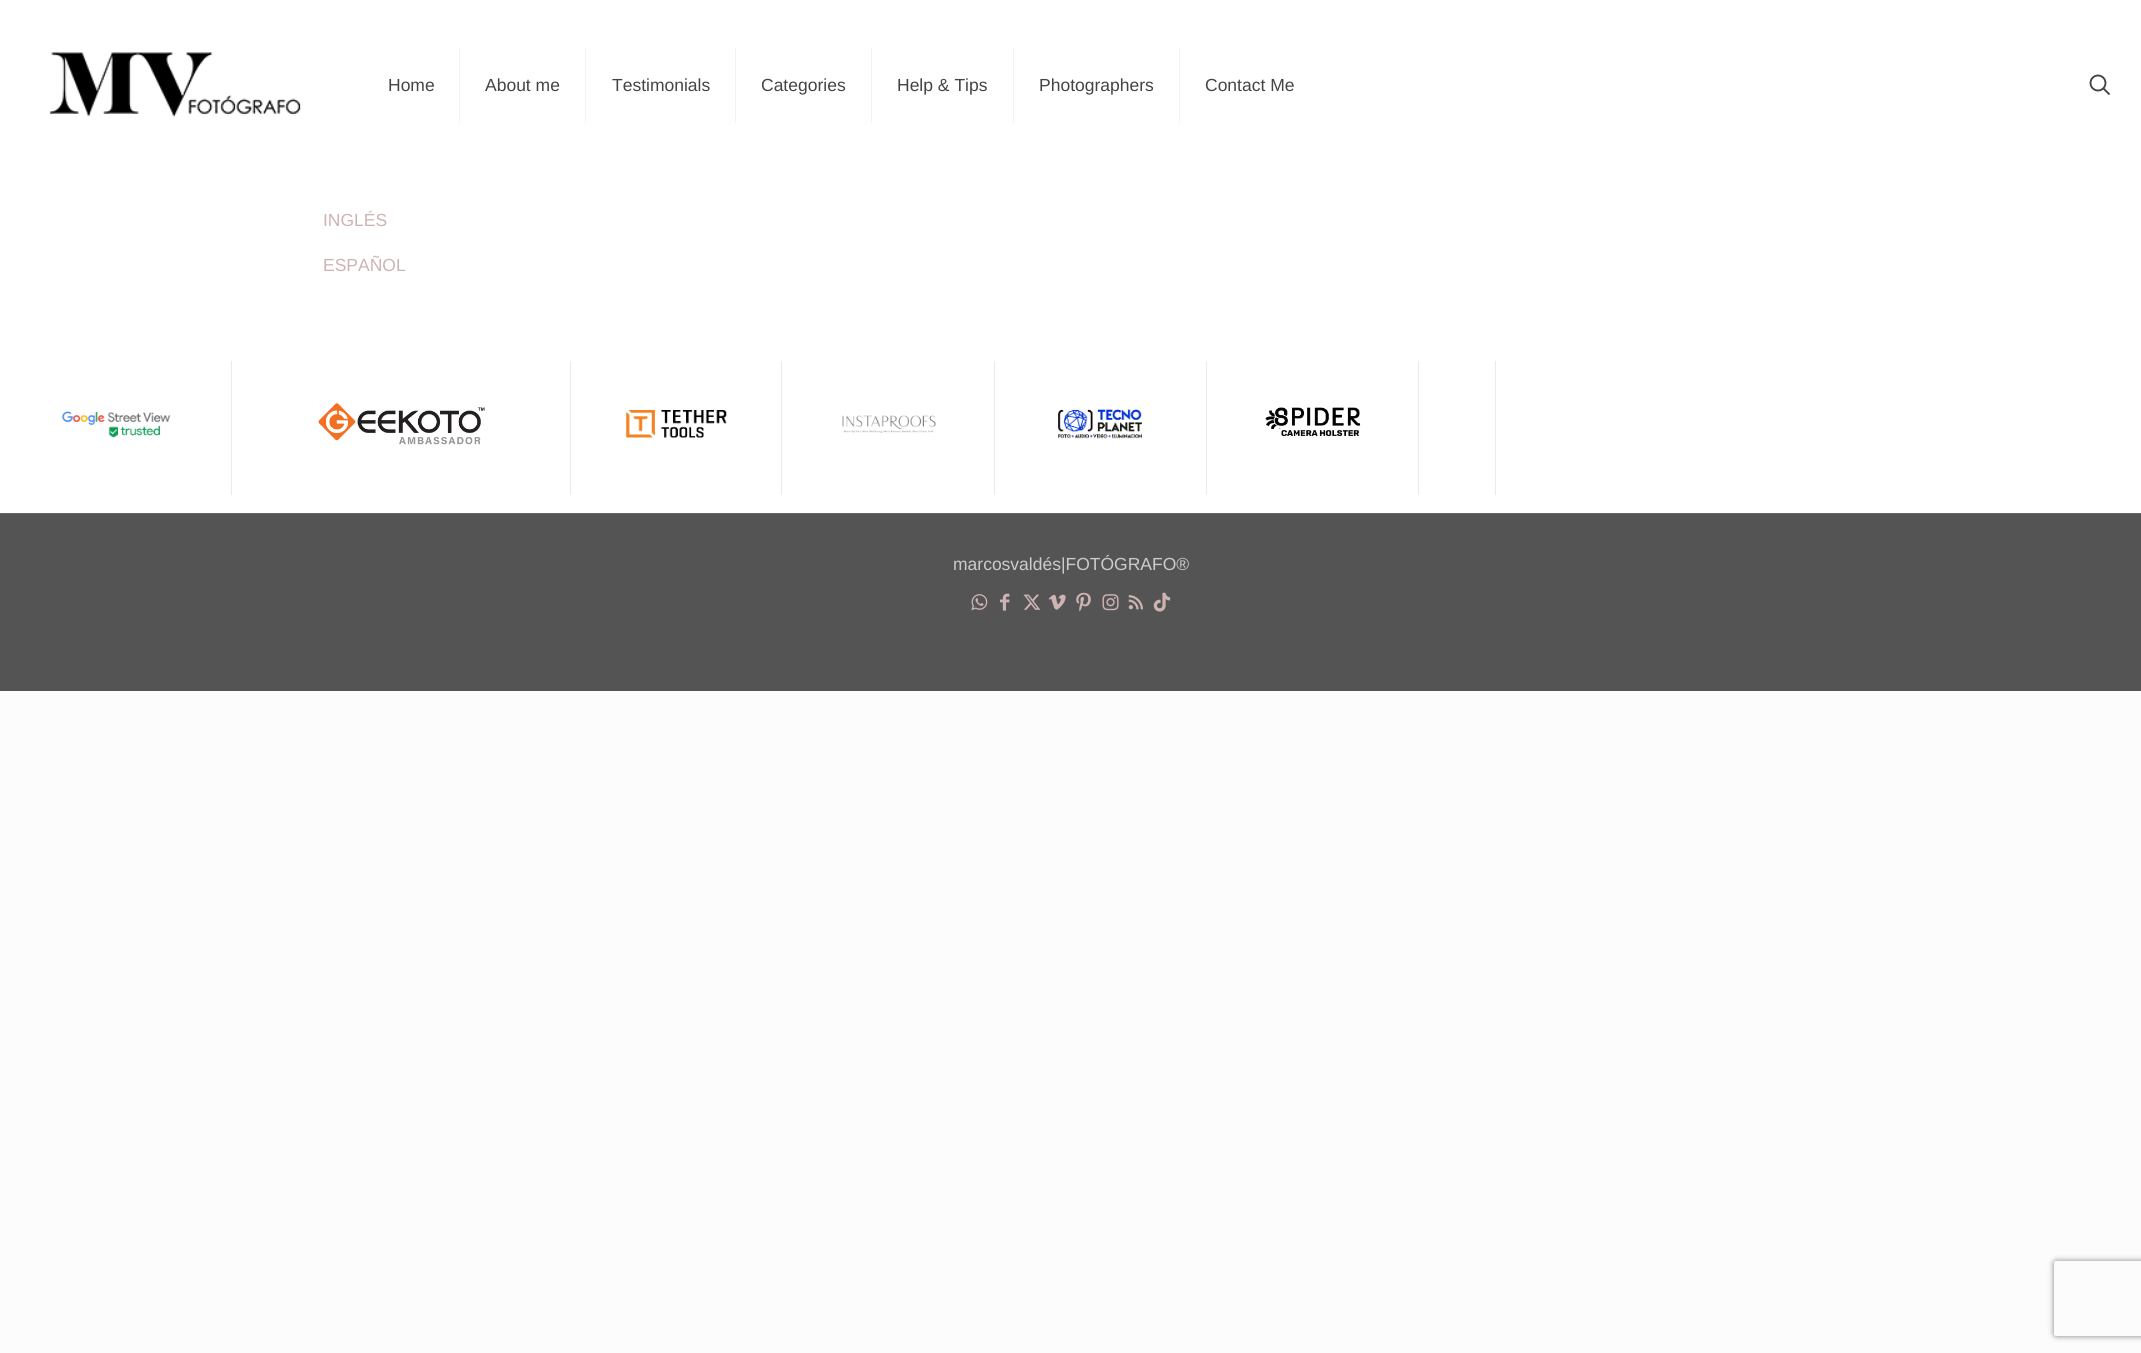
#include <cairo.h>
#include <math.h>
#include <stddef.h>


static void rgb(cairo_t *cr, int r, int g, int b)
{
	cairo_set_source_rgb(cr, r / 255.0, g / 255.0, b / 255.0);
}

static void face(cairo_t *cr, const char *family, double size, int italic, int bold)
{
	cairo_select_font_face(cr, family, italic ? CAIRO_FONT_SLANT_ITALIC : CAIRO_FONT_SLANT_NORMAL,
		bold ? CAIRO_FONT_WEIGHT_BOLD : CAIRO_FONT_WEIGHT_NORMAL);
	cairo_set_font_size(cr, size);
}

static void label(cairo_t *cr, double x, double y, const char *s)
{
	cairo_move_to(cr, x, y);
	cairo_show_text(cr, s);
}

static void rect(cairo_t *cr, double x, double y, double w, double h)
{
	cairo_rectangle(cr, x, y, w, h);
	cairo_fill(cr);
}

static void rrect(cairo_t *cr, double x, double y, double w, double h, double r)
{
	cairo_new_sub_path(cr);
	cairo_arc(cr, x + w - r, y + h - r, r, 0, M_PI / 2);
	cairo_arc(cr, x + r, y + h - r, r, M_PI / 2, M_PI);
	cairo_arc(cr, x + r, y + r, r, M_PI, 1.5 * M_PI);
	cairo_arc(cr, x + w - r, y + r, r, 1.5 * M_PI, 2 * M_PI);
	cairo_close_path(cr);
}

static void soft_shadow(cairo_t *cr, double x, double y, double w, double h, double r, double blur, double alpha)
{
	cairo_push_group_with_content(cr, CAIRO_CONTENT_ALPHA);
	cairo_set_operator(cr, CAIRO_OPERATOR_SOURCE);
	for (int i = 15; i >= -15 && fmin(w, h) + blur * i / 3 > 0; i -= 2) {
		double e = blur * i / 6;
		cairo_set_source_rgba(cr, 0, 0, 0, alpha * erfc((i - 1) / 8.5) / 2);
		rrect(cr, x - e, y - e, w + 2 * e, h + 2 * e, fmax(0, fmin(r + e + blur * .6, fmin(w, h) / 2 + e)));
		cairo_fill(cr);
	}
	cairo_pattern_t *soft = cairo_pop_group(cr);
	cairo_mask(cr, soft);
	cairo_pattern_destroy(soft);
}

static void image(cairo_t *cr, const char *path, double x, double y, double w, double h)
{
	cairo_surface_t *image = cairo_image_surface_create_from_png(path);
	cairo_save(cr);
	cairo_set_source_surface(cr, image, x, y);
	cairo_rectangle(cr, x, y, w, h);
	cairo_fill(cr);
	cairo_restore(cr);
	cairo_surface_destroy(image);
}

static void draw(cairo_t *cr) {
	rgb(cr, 252, 252, 252);
	cairo_paint(cr);
	rgb(cr, 255, 255, 255);
	rect(cr, 0, 0, 2141, 513);
	image(cr, "image0.png", 49, 52, 252, 65);
	rgb(cr, 242, 242, 242);
	rect(cr, 459, 48, 1, 75);
	face(cr, "Liberation Sans", 17.5, 0, 0);
	rgb(cr, 68, 68, 68);
	label(cr, 388, 91, "Home");
	rgb(cr, 242, 242, 242);
	rect(cr, 585, 48, 1, 75);
	rgb(cr, 68, 68, 68);
	label(cr, 485, 91, "About me");
	rgb(cr, 242, 242, 242);
	rect(cr, 735, 48, 1, 75);
	rgb(cr, 68, 68, 68);
	label(cr, 612, 91, "Testimonials");
	rgb(cr, 242, 242, 242);
	rect(cr, 871, 48, 1, 75);
	rgb(cr, 68, 68, 68);
	label(cr, 761, 91, "Categories");
	rgb(cr, 242, 242, 242);
	rect(cr, 1013, 48, 1, 75);
	rgb(cr, 68, 68, 68);
	label(cr, 897, 91, "Help & Tips");
	rgb(cr, 242, 242, 242);
	rect(cr, 1179, 48, 1, 75);
	rgb(cr, 68, 68, 68);
	label(cr, 1039, 91, "Photographers");
	label(cr, 1205, 91, "Contact Me");
	cairo_new_path(cr);
	cairo_arc(cr, 2098, 83, 7.5, 0, 2 * M_PI);
	cairo_set_line_width(cr, 1.9);
	cairo_stroke(cr);
	cairo_new_path(cr);
	cairo_move_to(cr, 2103, 88);
	cairo_line_to(cr, 2109.5, 94.5);
	cairo_stroke(cr);
	rgb(cr, 206, 179, 179);
	label(cr, 323, 226, "INGLÉS");
	label(cr, 323, 271, "ESPAÑOL");
	rgb(cr, 235, 235, 235);
	rect(cr, 231, 361, 1, 134);
	image(cr, "image1.png", 61, 411, 110, 27);
	rect(cr, 570, 361, 1, 134);
	image(cr, "image2.png", 318, 403, 167, 42);
	rect(cr, 781, 361, 1, 134);
	image(cr, "image3.png", 626, 410, 101, 28);
	rect(cr, 994, 361, 1, 134);
	image(cr, "image4.png", 842, 415, 94, 18);
	rect(cr, 1206, 361, 1, 134);
	image(cr, "image5.png", 1058, 409, 84, 30);
	rect(cr, 1418, 361, 1, 134);
	image(cr, "image6.png", 1265, 407, 96, 29);
	rect(cr, 1495, 361, 1, 134);
	rgb(cr, 84, 84, 84);
	rect(cr, 0, 514, 2141, 177);
	rgb(cr, 101, 101, 101);
	rect(cr, 0, 513, 2141, 1);
	rgb(cr, 204, 204, 204);
	label(cr, 953, 570, "marcosvaldés|FOTÓGRAFO®");
	image(cr, "image7.png", 971, 594, 17, 17);
	image(cr, "image8.png", 1000, 593, 10, 18);
	image(cr, "image9.png", 1023, 594, 18, 16);
	image(cr, "image10.png", 1048, 594, 18, 16);
	image(cr, "image11.png", 1076, 592, 15, 20);
	image(cr, "image12.png", 1102, 594, 17, 17);
	image(cr, "image13.png", 1128, 595, 15, 15);
	image(cr, "image14.png", 1153, 592, 18, 20);
	cairo_save(cr);
	cairo_set_fill_rule(cr, CAIRO_FILL_RULE_EVEN_ODD);
	cairo_new_path(cr);
	cairo_move_to(cr, 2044, 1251);
	cairo_line_to(cr, 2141, 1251);
	cairo_line_to(cr, 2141, 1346);
	cairo_line_to(cr, 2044, 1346);
	cairo_close_path(cr);
	cairo_move_to(cr, 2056.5, 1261);
	cairo_line_to(cr, 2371.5, 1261);
	cairo_curve_to(cr, 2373, 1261, 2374, 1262, 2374, 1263.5);
	cairo_line_to(cr, 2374, 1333.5);
	cairo_curve_to(cr, 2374, 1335, 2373, 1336, 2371.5, 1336);
	cairo_line_to(cr, 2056.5, 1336);
	cairo_curve_to(cr, 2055, 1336, 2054, 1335, 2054, 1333.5);
	cairo_line_to(cr, 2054, 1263.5);
	cairo_curve_to(cr, 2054, 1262, 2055, 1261, 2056.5, 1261);
	cairo_close_path(cr);
	cairo_clip(cr);
	rgb(cr, 128, 128, 128);
	soft_shadow(cr, 2054, 1261, 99, 75, 2.5, 3, 1);
	cairo_restore(cr);
}

int main(void) {
	cairo_surface_t *surface = cairo_image_surface_create(CAIRO_FORMAT_RGB24, 2141, 1353);
	cairo_t *cr = cairo_create(surface);
	cairo_font_options_t *options = cairo_font_options_create();
	cairo_font_options_set_hint_metrics(options, CAIRO_HINT_METRICS_OFF);
	cairo_font_options_set_hint_style(options, CAIRO_HINT_STYLE_NONE);
	cairo_set_font_options(cr, options);
	cairo_set_miter_limit(cr, 4);
	draw(cr);
	cairo_surface_write_to_png(surface, "render.png");
	cairo_font_options_destroy(options);
	cairo_destroy(cr);
	cairo_surface_destroy(surface);
	return 0;
}
